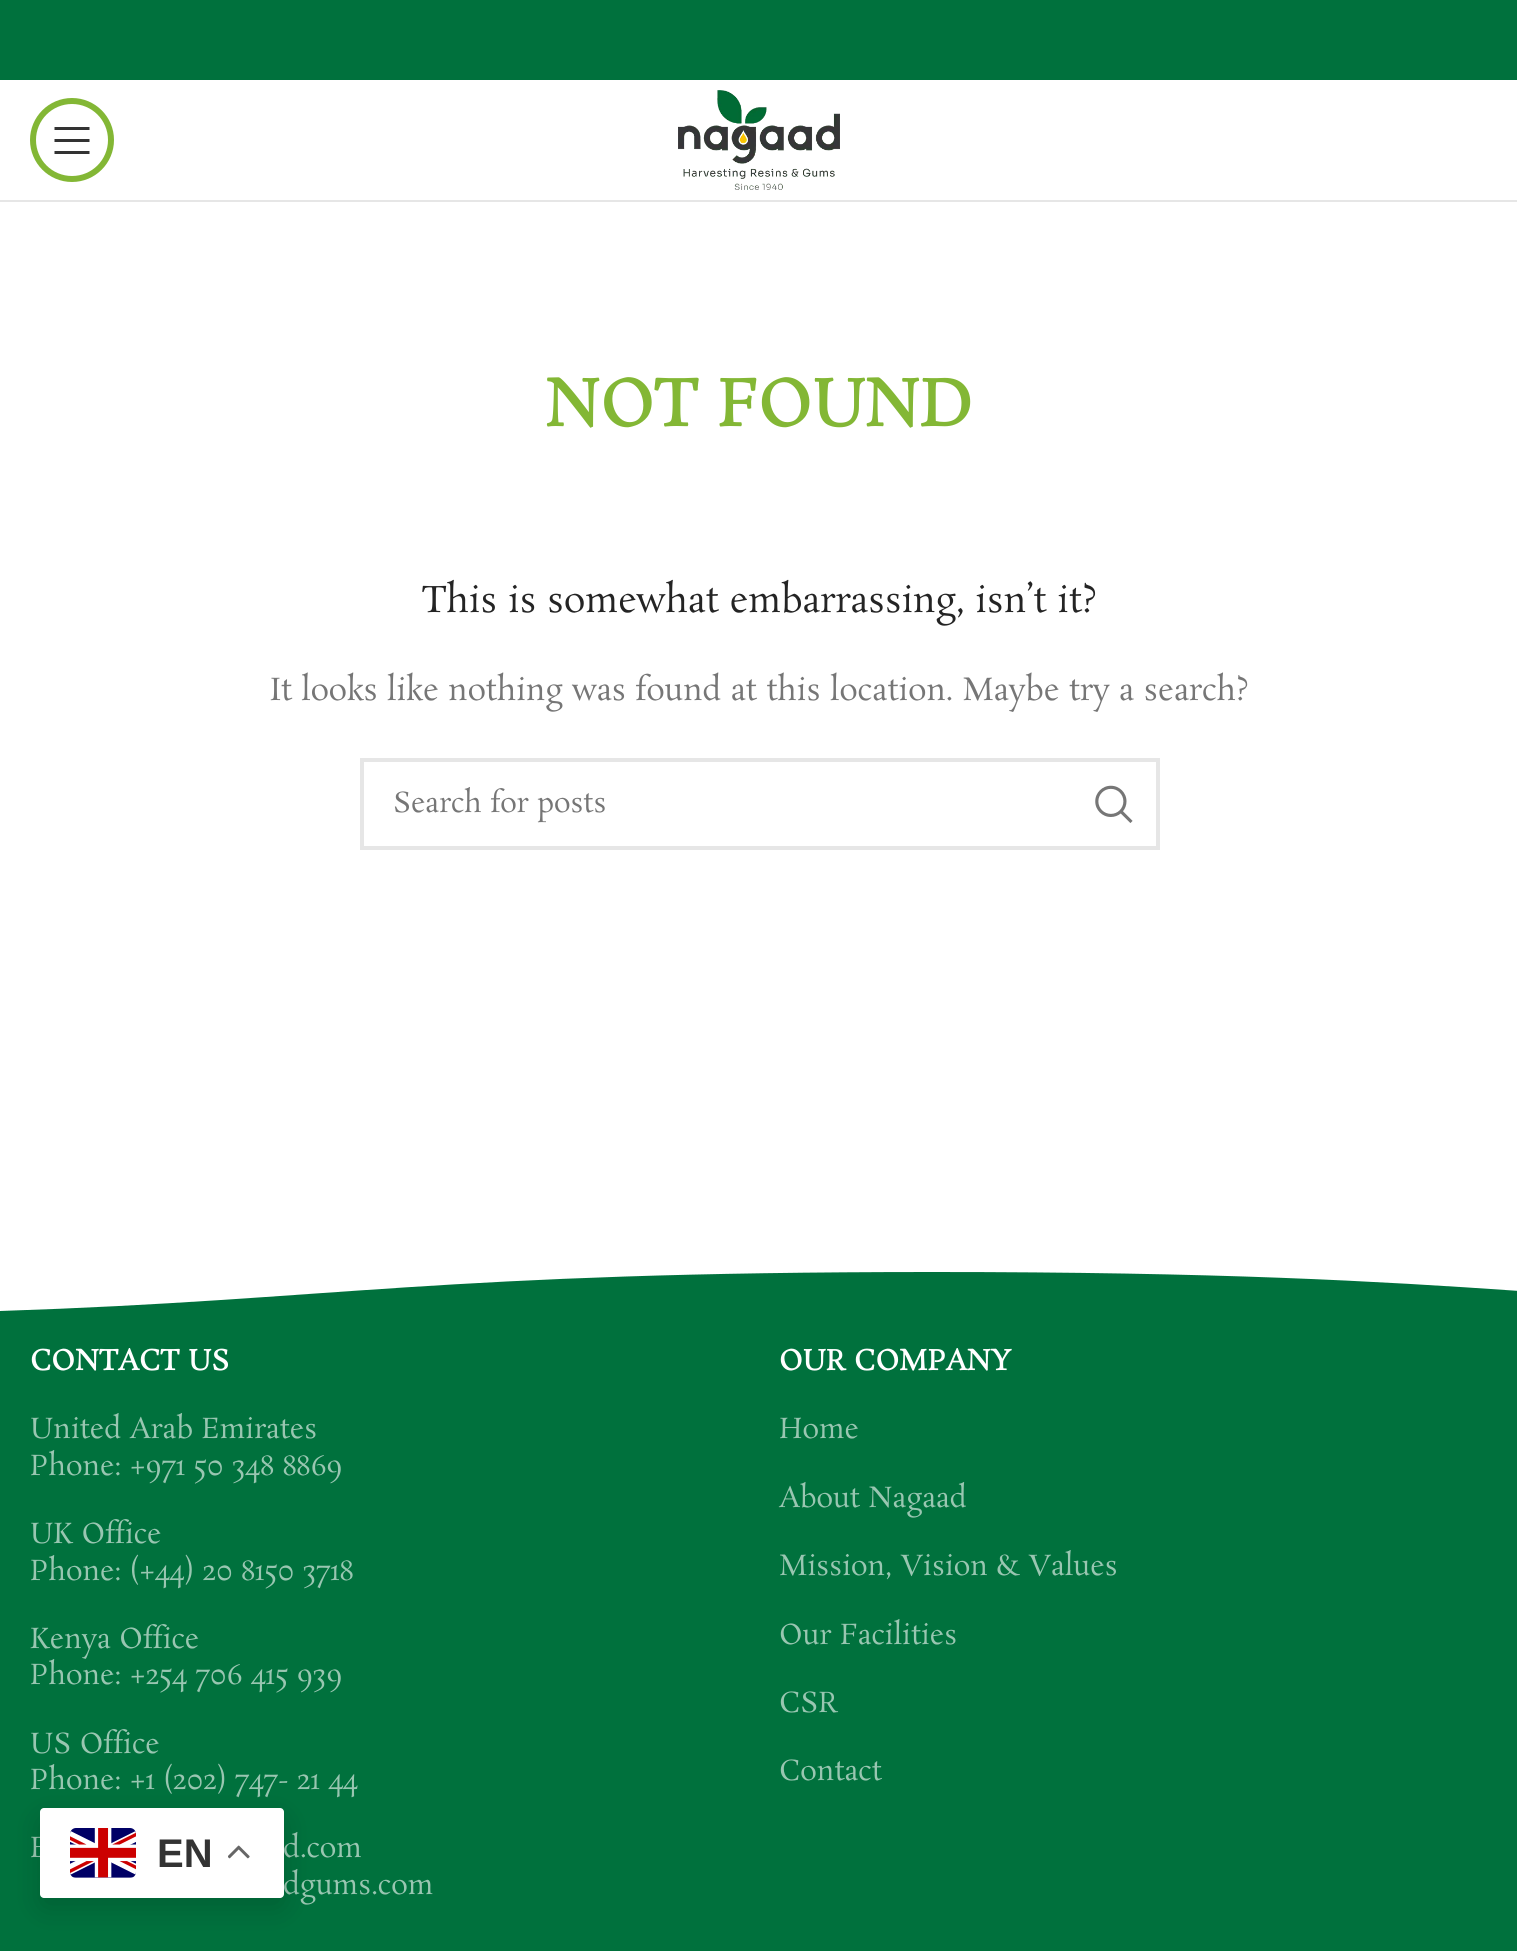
#include <cairo.h>
#include <math.h>
#include <stddef.h>


static void rgb(cairo_t *cr, int r, int g, int b)
{
	cairo_set_source_rgb(cr, r / 255.0, g / 255.0, b / 255.0);
}

static void face(cairo_t *cr, const char *family, double size, int italic, int bold)
{
	cairo_select_font_face(cr, family, italic ? CAIRO_FONT_SLANT_ITALIC : CAIRO_FONT_SLANT_NORMAL,
		bold ? CAIRO_FONT_WEIGHT_BOLD : CAIRO_FONT_WEIGHT_NORMAL);
	cairo_set_font_size(cr, size);
}

static void label(cairo_t *cr, double x, double y, const char *s)
{
	cairo_move_to(cr, x, y);
	cairo_show_text(cr, s);
}

static void rect(cairo_t *cr, double x, double y, double w, double h)
{
	cairo_rectangle(cr, x, y, w, h);
	cairo_fill(cr);
}

static void rrect(cairo_t *cr, double x, double y, double w, double h, double r)
{
	cairo_new_sub_path(cr);
	cairo_arc(cr, x + w - r, y + h - r, r, 0, M_PI / 2);
	cairo_arc(cr, x + r, y + h - r, r, M_PI / 2, M_PI);
	cairo_arc(cr, x + r, y + r, r, M_PI, 1.5 * M_PI);
	cairo_arc(cr, x + w - r, y + r, r, 1.5 * M_PI, 2 * M_PI);
	cairo_close_path(cr);
}

static void soft_shadow(cairo_t *cr, double x, double y, double w, double h, double r, double blur, double alpha)
{
	cairo_push_group_with_content(cr, CAIRO_CONTENT_ALPHA);
	cairo_set_operator(cr, CAIRO_OPERATOR_SOURCE);
	for (int i = 15; i >= -15 && fmin(w, h) + blur * i / 3 > 0; i -= 2) {
		double e = blur * i / 6;
		cairo_set_source_rgba(cr, 0, 0, 0, alpha * erfc((i - 1) / 8.5) / 2);
		rrect(cr, x - e, y - e, w + 2 * e, h + 2 * e, fmax(0, fmin(r + e + blur * .6, fmin(w, h) / 2 + e)));
		cairo_fill(cr);
	}
	cairo_pattern_t *soft = cairo_pop_group(cr);
	cairo_mask(cr, soft);
	cairo_pattern_destroy(soft);
}

static void image(cairo_t *cr, const char *path, double x, double y, double w, double h)
{
	cairo_surface_t *image = cairo_image_surface_create_from_png(path);
	cairo_save(cr);
	cairo_set_source_surface(cr, image, x, y);
	cairo_rectangle(cr, x, y, w, h);
	cairo_fill(cr);
	cairo_restore(cr);
	cairo_surface_destroy(image);
}

static void draw(cairo_t *cr) {
	rgb(cr, 255, 255, 255);
	cairo_paint(cr);
	rgb(cr, 0, 113, 61);
	rect(cr, 0, 0, 1517, 80);
	rgb(cr, 230, 230, 230);
	rect(cr, 0, 200, 1517, 2);
	rgb(cr, 131, 183, 53);
	cairo_arc(cr, 72, 140, 42, 0, 2 * M_PI);
	cairo_fill(cr);
	rgb(cr, 255, 255, 255);
	cairo_arc(cr, 72, 140, 36, 0, 2 * M_PI);
	cairo_fill(cr);
	rgb(cr, 51, 51, 51);
	cairo_new_path(cr);
	cairo_move_to(cr, 54.5, 130);
	cairo_line_to(cr, 89.5, 130);
	cairo_line_to(cr, 89.5, 127);
	cairo_line_to(cr, 54.5, 127);
	cairo_close_path(cr);
	cairo_move_to(cr, 54.5, 142);
	cairo_line_to(cr, 89.5, 142);
	cairo_line_to(cr, 89.5, 139);
	cairo_line_to(cr, 54.5, 139);
	cairo_close_path(cr);
	cairo_move_to(cr, 54.5, 154);
	cairo_line_to(cr, 89.5, 154);
	cairo_line_to(cr, 89.5, 151);
	cairo_line_to(cr, 54.5, 151);
	cairo_close_path(cr);
	cairo_fill(cr);
	image(cr, "image0.png", 678, 90, 162, 100);
	face(cr, "Rosarivo", 64, 0, 1);
	rgb(cr, 131, 183, 53);
	label(cr, 545, 426, "NOT FOUND");
	face(cr, "Rosarivo", 36, 0, 0);
	rgb(cr, 36, 36, 36);
	label(cr, 422, 612, "This is somewhat embarrassing, isn’t it?");
	face(cr, "Rosarivo", 30.8, 0, 0);
	rgb(cr, 118, 118, 118);
	label(cr, 270, 700, "It looks like nothing was found at this location. Maybe try a search?");
	cairo_rectangle(cr, 362, 760, 796, 88);
	rgb(cr, 230, 230, 230);
	cairo_set_line_width(cr, 4);
	cairo_stroke(cr);
	face(cr, "Rosarivo", 28, 0, 0);
	rgb(cr, 118, 118, 118);
	label(cr, 393, 812, "Search for posts");
	image(cr, "image1.png", 1095, 785, 38, 38);
	rgb(cr, 0, 113, 61);
	rect(cr, 0, 1272, 1517, 679);
	rgb(cr, 255, 255, 255);
	cairo_new_path(cr);
	cairo_move_to(cr, 0, 1256);
	cairo_line_to(cr, 0, 1311);
	cairo_curve_to(cr, 334, 1300, 436, 1272, 933, 1272);
	cairo_curve_to(cr, 1219, 1272, 1376, 1281, 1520, 1291);
	cairo_line_to(cr, 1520, 1256);
	cairo_close_path(cr);
	cairo_fill(cr);
	face(cr, "Rosarivo", 28, 0, 1);
	label(cr, 30, 1370, "CONTACT US");
	face(cr, "Rosarivo", 28, 0, 0);
	rgb(cr, 153, 198, 177);
	label(cr, 30, 1438, "United Arab Emirates");
	label(cr, 30, 1475, "Phone: +971 50 348 8869");
	label(cr, 30, 1543, "UK Office");
	label(cr, 30, 1580, "Phone: (+44) 20 8150 3718");
	label(cr, 30, 1648, "Kenya Office");
	label(cr, 30, 1684, "Phone: +254 706 415 939");
	label(cr, 30, 1753, "US Office");
	label(cr, 30, 1789, "Phone: +1 (202) 747- 21 44");
	label(cr, 30, 1857, "E");
	label(cr, 283, 1857, "d.com");
	label(cr, 283, 1894, "dgums.com");
	face(cr, "Rosarivo", 28, 0, 1);
	rgb(cr, 255, 255, 255);
	label(cr, 779, 1370, "OUR COMPANY");
	face(cr, "Rosarivo", 28, 0, 0);
	rgb(cr, 153, 198, 177);
	label(cr, 779, 1438, "Home");
	label(cr, 779, 1507, "About Nagaad");
	label(cr, 779, 1575, "Mission, Vision & Values");
	label(cr, 779, 1644, "Our Facilities");
	label(cr, 779, 1712, "CSR");
	label(cr, 779, 1780, "Contact");
	rgb(cr, 0, 0, 0);
	soft_shadow(cr, 40, 1818, 244, 90, 4, 15, 0.15);
	rgb(cr, 255, 255, 255);
	rrect(cr, 40, 1808, 244, 90, 4);
	cairo_fill(cr);
	image(cr, "image2.png", 70, 1828, 66, 50);
	face(cr, "Liberation Sans", 40, 0, 1);
	rgb(cr, 51, 51, 51);
	label(cr, 157, 1867, "EN");
	image(cr, "image3.png", 228, 1845, 22, 14);
}

int main(void) {
	cairo_surface_t *surface = cairo_image_surface_create(CAIRO_FORMAT_RGB24, 1517, 1951);
	cairo_t *cr = cairo_create(surface);
	cairo_font_options_t *options = cairo_font_options_create();
	cairo_font_options_set_hint_metrics(options, CAIRO_HINT_METRICS_OFF);
	cairo_font_options_set_hint_style(options, CAIRO_HINT_STYLE_NONE);
	cairo_set_font_options(cr, options);
	cairo_set_miter_limit(cr, 4);
	draw(cr);
	cairo_surface_write_to_png(surface, "render.png");
	cairo_font_options_destroy(options);
	cairo_destroy(cr);
	cairo_surface_destroy(surface);
	return 0;
}
